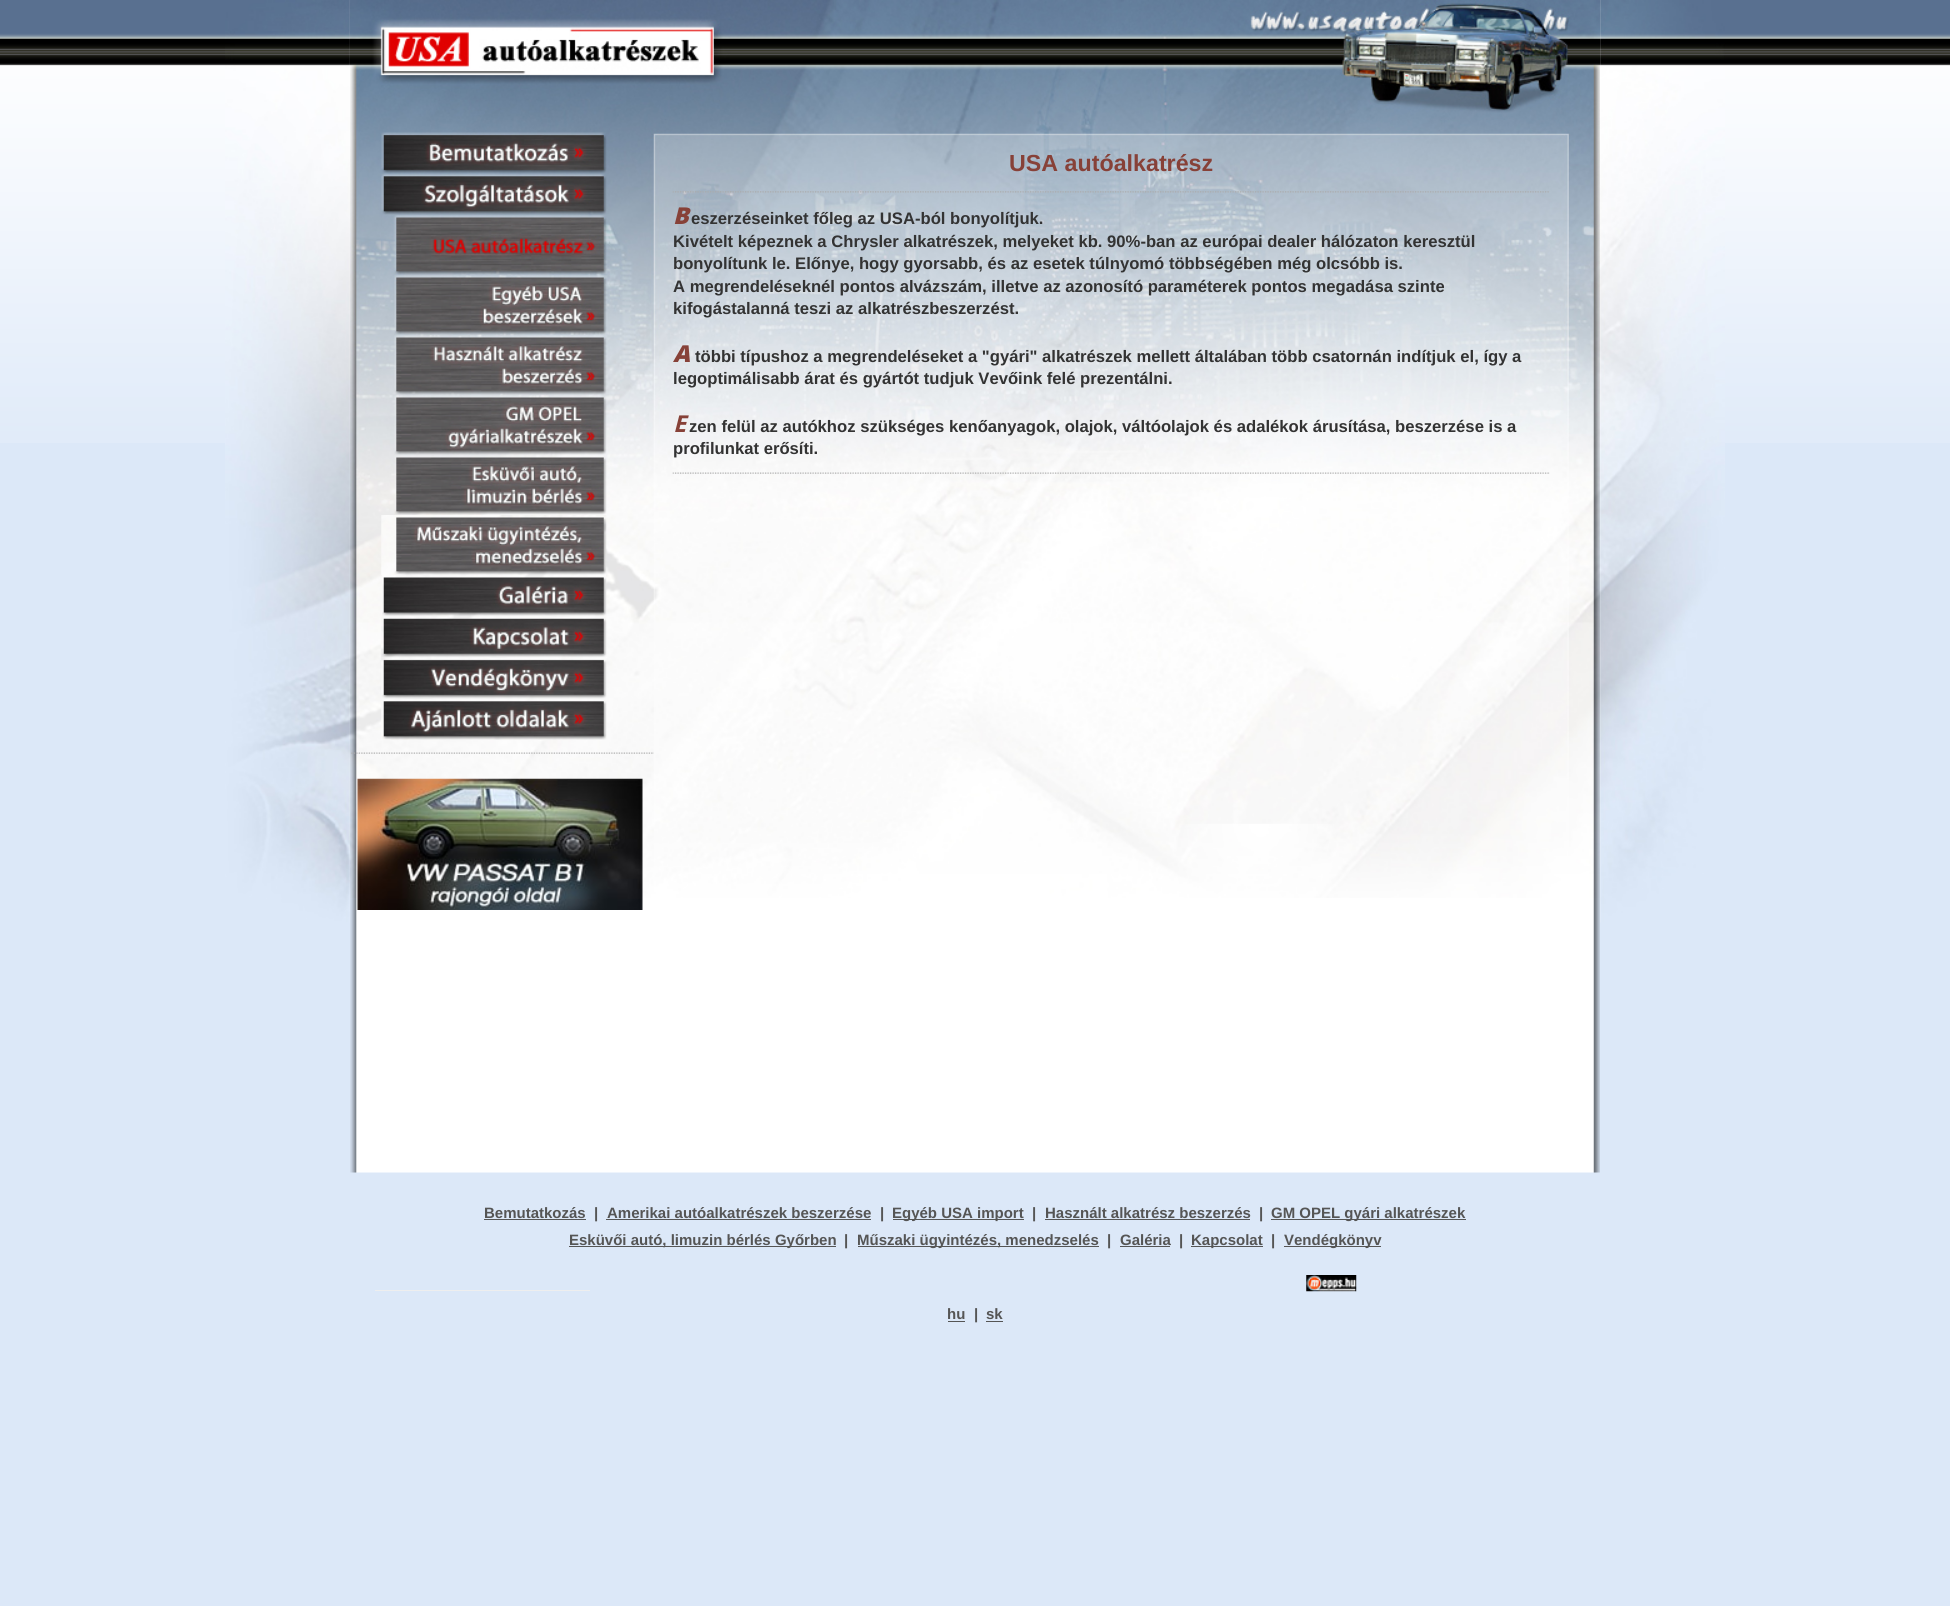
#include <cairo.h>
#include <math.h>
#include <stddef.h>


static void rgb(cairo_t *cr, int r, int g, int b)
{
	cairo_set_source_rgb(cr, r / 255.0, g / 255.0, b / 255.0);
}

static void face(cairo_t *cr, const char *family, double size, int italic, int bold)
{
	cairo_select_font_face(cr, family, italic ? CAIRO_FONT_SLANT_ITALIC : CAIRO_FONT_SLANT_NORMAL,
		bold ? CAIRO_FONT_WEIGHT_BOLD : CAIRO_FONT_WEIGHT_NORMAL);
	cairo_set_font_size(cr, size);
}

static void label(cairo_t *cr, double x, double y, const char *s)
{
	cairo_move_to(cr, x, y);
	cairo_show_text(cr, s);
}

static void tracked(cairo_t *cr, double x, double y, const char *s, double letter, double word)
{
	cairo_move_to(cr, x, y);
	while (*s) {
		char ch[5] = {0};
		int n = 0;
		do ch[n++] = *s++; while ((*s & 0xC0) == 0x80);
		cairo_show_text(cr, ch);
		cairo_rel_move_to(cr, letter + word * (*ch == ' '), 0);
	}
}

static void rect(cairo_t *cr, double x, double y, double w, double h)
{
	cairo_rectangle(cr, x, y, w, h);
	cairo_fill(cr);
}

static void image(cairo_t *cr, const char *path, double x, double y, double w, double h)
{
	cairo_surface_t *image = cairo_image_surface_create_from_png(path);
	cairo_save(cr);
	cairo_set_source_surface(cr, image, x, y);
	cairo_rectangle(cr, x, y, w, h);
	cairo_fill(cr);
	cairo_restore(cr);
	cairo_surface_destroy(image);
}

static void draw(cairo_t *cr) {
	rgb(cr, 220, 232, 248);
	cairo_paint(cr);
	image(cr, "image0.png", 0, 0, 1950, 443);
	image(cr, "image1.png", 225, 0, 1500, 923);
	image(cr, "image2.png", 350, 898, 1250, 275);
	image(cr, "image3.png", 350, 0, 1250, 898);
	image(cr, "image4.png", 381, 132, 226, 42);
	image(cr, "image5.png", 381, 173, 226, 42);
	image(cr, "image6.png", 381, 215, 226, 60);
	image(cr, "image7.png", 394, 275, 213, 60);
	image(cr, "image8.png", 394, 335, 213, 60);
	image(cr, "image9.png", 394, 395, 213, 60);
	image(cr, "image10.png", 394, 455, 213, 60);
	image(cr, "image11.png", 381, 515, 226, 60);
	image(cr, "image12.png", 382, 575, 225, 42);
	image(cr, "image13.png", 381, 616, 226, 42);
	image(cr, "image14.png", 381, 657, 226, 42);
	image(cr, "image15.png", 381, 699, 226, 41);
	image(cr, "image16.png", 351, 752, 303, 2);
	image(cr, "image17.png", 357, 778, 286, 132);
	face(cr, "Liberation Sans", 23.25, 0, 1);
	rgb(cr, 135, 65, 56);
	label(cr, 1009, 171, "USA autóalkatrész");
	image(cr, "image18.png", 672, 191, 877, 2);
	face(cr, "Noto Sans Black", 23.25, 1, 0);
	tracked(cr, 673, 224, "B", 1, 0);
	face(cr, "Liberation Sans", 16.65, 0, 1);
	rgb(cr, 51, 51, 51);
	label(cr, 691, 224, "eszerzéseinket főleg az USA-ból bonyolítjuk.");
	label(cr, 673, 247, "Kivételt képeznek a Chrysler alkatrészek, melyeket kb. 90%-ban az európai dealer hálózaton keresztül");
	label(cr, 673, 269, "bonyolítunk le. Előnye, hogy gyorsabb, és az esetek túlnyomó többségében még olcsóbb is.");
	label(cr, 673, 292, "A megrendeléseknél pontos alvázszám, illetve az azonosító paraméterek pontos megadása szinte");
	label(cr, 673, 314, "kifogástalanná teszi az alkatrészbeszerzést.");
	face(cr, "Noto Sans Black", 23.25, 1, 0);
	rgb(cr, 135, 65, 56);
	tracked(cr, 673, 362, "A", 1, 0);
	face(cr, "Liberation Sans", 16.65, 0, 1);
	rgb(cr, 51, 51, 51);
	label(cr, 695, 362, "többi típushoz a megrendeléseket a \"gyári\" alkatrészek mellett általában több csatornán indítjuk el, így a");
	label(cr, 673, 384, "legoptimálisabb árat és gyártót tudjuk Vevőink felé prezentálni.");
	face(cr, "Noto Sans", 23.25, 1, 1);
	rgb(cr, 135, 65, 56);
	tracked(cr, 673, 432, "E", 1, 0);
	face(cr, "Liberation Sans", 16.65, 0, 1);
	rgb(cr, 51, 51, 51);
	label(cr, 689, 432, "zen felül az autókhoz szükséges kenőanyagok, olajok, váltóolajok és adalékok árusítása, beszerzése is a");
	label(cr, 673, 454, "profilunkat erősíti.");
	image(cr, "image19.png", 672, 472, 878, 2);
	face(cr, "Liberation Sans", 15, 0, 1);
	rgb(cr, 85, 85, 85);
	label(cr, 484, 1218, "Bemutatkozás");
	rect(cr, 484, 1219, 102, 1);
	label(cr, 594, 1218, "|");
	label(cr, 607, 1218, "Amerikai autóalkatrészek beszerzése");
	rect(cr, 606, 1219, 265, 1);
	label(cr, 880, 1218, "|");
	rect(cr, 893, 1219, 131, 1);
	label(cr, 892, 1218, "Egyéb USA import");
	label(cr, 1032, 1218, "|");
	label(cr, 1045, 1218, "Használt alkatrész beszerzés");
	rect(cr, 1045, 1219, 205, 1);
	label(cr, 1259, 1218, "|");
	rect(cr, 1271, 1219, 195, 1);
	label(cr, 1271, 1218, "GM OPEL gyári alkatrészek");
	rect(cr, 569, 1246, 267, 1);
	label(cr, 569, 1245, "Esküvői autó, limuzin bérlés Győrben");
	label(cr, 844, 1245, "|");
	rect(cr, 858, 1246, 241, 1);
	label(cr, 857, 1245, "Műszaki ügyintézés, menedzselés");
	label(cr, 1107, 1245, "|");
	label(cr, 1120, 1245, "Galéria");
	rect(cr, 1120, 1246, 50, 1);
	label(cr, 1179, 1245, "|");
	rect(cr, 1191, 1246, 72, 1);
	label(cr, 1191, 1245, "Kapcsolat");
	label(cr, 1271, 1245, "|");
	rect(cr, 1284, 1246, 97, 1);
	label(cr, 1284, 1245, "Vendégkönyv");
	rgb(cr, 238, 238, 238);
	rect(cr, 375, 1290, 215, 1);
	image(cr, "image20.png", 1306, 1275, 51, 17);
	rgb(cr, 85, 85, 85);
	label(cr, 947, 1319, "hu");
	rect(cr, 948, 1321, 17, 1);
	label(cr, 974, 1319, "|");
	label(cr, 986, 1319, "sk");
	rect(cr, 986, 1321, 17, 1);
}

int main(void) {
	cairo_surface_t *surface = cairo_image_surface_create(CAIRO_FORMAT_RGB24, 1950, 1606);
	cairo_t *cr = cairo_create(surface);
	cairo_font_options_t *options = cairo_font_options_create();
	cairo_font_options_set_hint_metrics(options, CAIRO_HINT_METRICS_OFF);
	cairo_font_options_set_hint_style(options, CAIRO_HINT_STYLE_NONE);
	cairo_set_font_options(cr, options);
	cairo_set_miter_limit(cr, 4);
	draw(cr);
	cairo_surface_write_to_png(surface, "render.png");
	cairo_font_options_destroy(options);
	cairo_destroy(cr);
	cairo_surface_destroy(surface);
	return 0;
}
